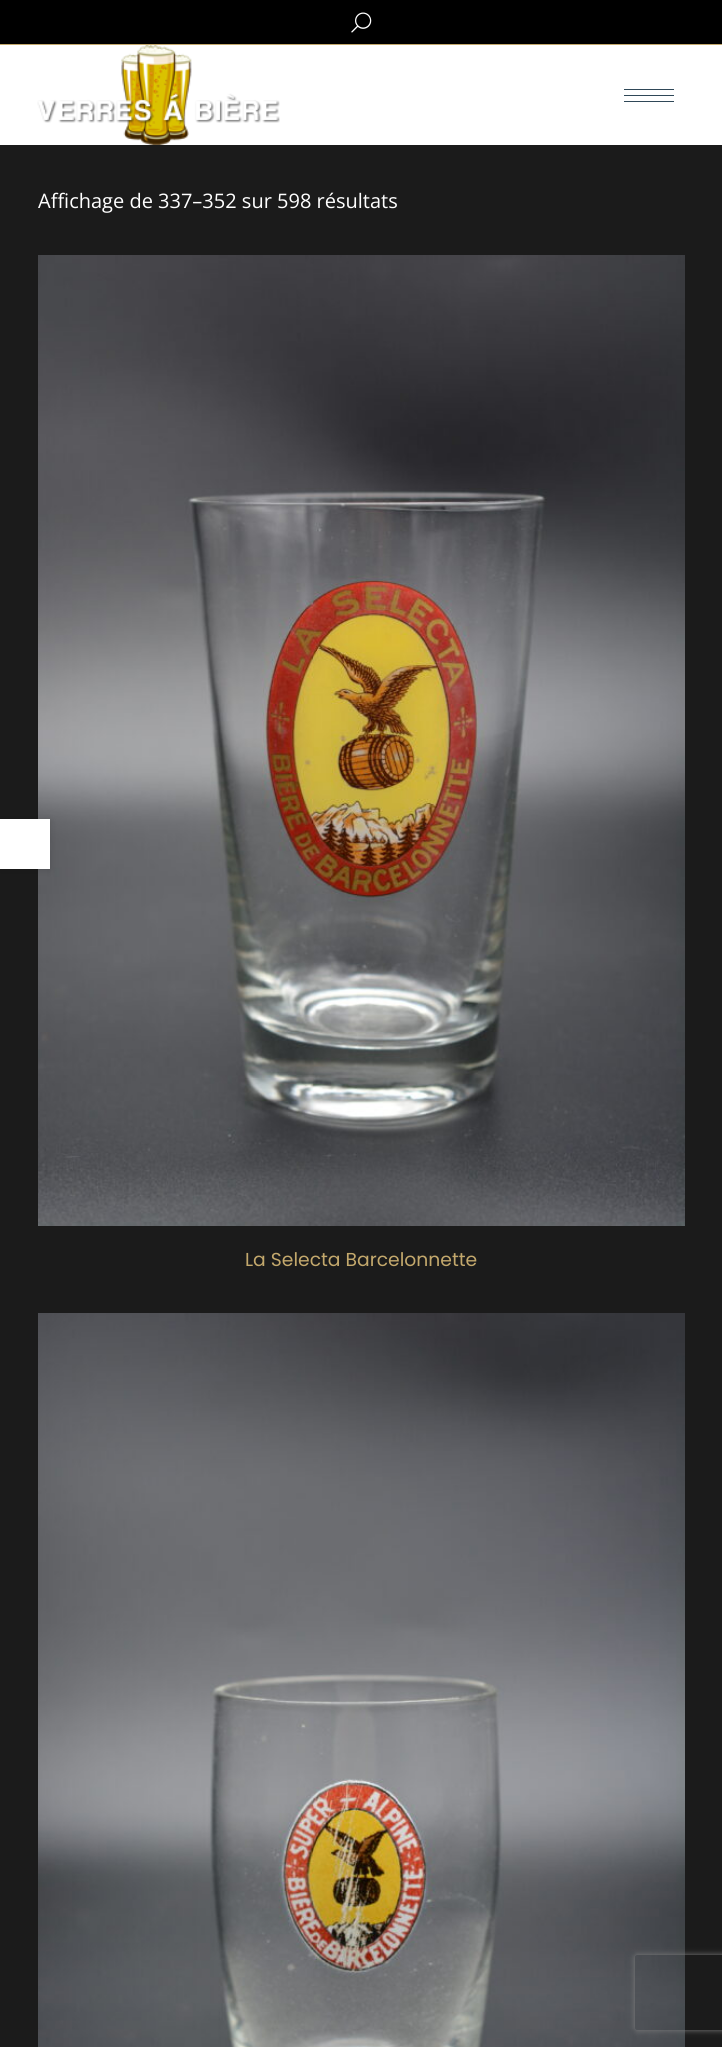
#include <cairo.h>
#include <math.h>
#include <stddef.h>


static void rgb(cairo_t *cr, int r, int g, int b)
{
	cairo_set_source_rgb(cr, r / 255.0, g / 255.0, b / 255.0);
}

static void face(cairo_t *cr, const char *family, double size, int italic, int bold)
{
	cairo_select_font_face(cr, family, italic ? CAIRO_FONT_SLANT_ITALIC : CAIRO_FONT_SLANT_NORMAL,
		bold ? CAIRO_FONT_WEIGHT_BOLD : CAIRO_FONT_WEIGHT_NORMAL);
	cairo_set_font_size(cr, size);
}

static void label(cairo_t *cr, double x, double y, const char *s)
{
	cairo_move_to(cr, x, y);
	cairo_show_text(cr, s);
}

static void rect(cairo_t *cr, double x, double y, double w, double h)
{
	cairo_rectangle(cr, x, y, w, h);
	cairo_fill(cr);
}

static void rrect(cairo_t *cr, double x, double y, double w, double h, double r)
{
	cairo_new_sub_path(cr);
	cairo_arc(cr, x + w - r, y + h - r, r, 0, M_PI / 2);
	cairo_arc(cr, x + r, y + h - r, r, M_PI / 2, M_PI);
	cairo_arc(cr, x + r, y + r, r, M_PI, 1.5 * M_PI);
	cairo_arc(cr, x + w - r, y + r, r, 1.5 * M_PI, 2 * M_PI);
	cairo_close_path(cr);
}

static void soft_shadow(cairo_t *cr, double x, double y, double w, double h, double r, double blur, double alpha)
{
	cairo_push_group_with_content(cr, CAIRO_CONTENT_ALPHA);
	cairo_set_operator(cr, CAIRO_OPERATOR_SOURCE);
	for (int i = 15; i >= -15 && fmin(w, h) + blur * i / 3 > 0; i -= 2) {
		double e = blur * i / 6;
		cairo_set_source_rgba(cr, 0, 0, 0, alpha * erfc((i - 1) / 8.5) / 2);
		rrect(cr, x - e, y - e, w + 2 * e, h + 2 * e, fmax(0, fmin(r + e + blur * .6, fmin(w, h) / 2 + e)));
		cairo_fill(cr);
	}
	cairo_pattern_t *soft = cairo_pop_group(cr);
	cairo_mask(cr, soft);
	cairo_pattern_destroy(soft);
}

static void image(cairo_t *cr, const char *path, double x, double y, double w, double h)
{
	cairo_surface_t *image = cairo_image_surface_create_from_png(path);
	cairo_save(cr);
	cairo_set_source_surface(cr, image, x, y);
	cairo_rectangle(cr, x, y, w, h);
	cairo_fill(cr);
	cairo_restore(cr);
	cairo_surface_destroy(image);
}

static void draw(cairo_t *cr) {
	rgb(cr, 27, 27, 27);
	cairo_paint(cr);
	rgb(cr, 255, 255, 255);
	rect(cr, 0, 45, 722, 100);
	rgb(cr, 0, 0, 0);
	rect(cr, 0, 0, 722, 44);
	image(cr, "image0.png", 351, 12, 21, 21);
	rgb(cr, 195, 168, 108);
	rect(cr, 0, 44, 722, 1);
	image(cr, "image1.png", 37, 45, 243, 100);
	rgb(cr, 47, 72, 88);
	rect(cr, 624, 89, 50, 1);
	rect(cr, 624, 95, 50, 1);
	rect(cr, 624, 101, 50, 1);
	image(cr, "image2.png", 38, 255, 647, 971);
	rgb(cr, 0, 0, 0);
	soft_shadow(cr, 0, 820, 50, 50, 0, 4, 0.12);
	rgb(cr, 255, 255, 255);
	rect(cr, 0, 819, 50, 50);
	face(cr, "Open Sans", 20, 0, 0);
	label(cr, 38, 208, "Affichage de 337–352 sur 598 résultats");
	face(cr, "Poppins", 18.75, 0, 0);
	rgb(cr, 195, 168, 108);
	label(cr, 245, 1266, "La Selecta Barcelonnette");
	image(cr, "image3.png", 38, 1313, 647, 734);
	cairo_save(cr);
	cairo_set_fill_rule(cr, CAIRO_FILL_RULE_EVEN_ODD);
	cairo_new_path(cr);
	cairo_move_to(cr, 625, 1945);
	cairo_line_to(cr, 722, 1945);
	cairo_line_to(cr, 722, 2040);
	cairo_line_to(cr, 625, 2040);
	cairo_close_path(cr);
	cairo_move_to(cr, 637.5, 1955);
	cairo_line_to(cr, 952.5, 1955);
	cairo_curve_to(cr, 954, 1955, 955, 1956, 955, 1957.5);
	cairo_line_to(cr, 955, 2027.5);
	cairo_curve_to(cr, 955, 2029, 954, 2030, 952.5, 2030);
	cairo_line_to(cr, 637.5, 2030);
	cairo_curve_to(cr, 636, 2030, 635, 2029, 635, 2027.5);
	cairo_line_to(cr, 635, 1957.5);
	cairo_curve_to(cr, 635, 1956, 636, 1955, 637.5, 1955);
	cairo_close_path(cr);
	cairo_clip(cr);
	rgb(cr, 128, 128, 128);
	soft_shadow(cr, 635, 1955, 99, 75, 2.5, 3, 1);
	cairo_restore(cr);
}

int main(void) {
	cairo_surface_t *surface = cairo_image_surface_create(CAIRO_FORMAT_RGB24, 722, 2047);
	cairo_t *cr = cairo_create(surface);
	cairo_font_options_t *options = cairo_font_options_create();
	cairo_font_options_set_hint_metrics(options, CAIRO_HINT_METRICS_OFF);
	cairo_font_options_set_hint_style(options, CAIRO_HINT_STYLE_NONE);
	cairo_set_font_options(cr, options);
	cairo_set_miter_limit(cr, 4);
	draw(cr);
	cairo_surface_write_to_png(surface, "render.png");
	cairo_font_options_destroy(options);
	cairo_destroy(cr);
	cairo_surface_destroy(surface);
	return 0;
}
